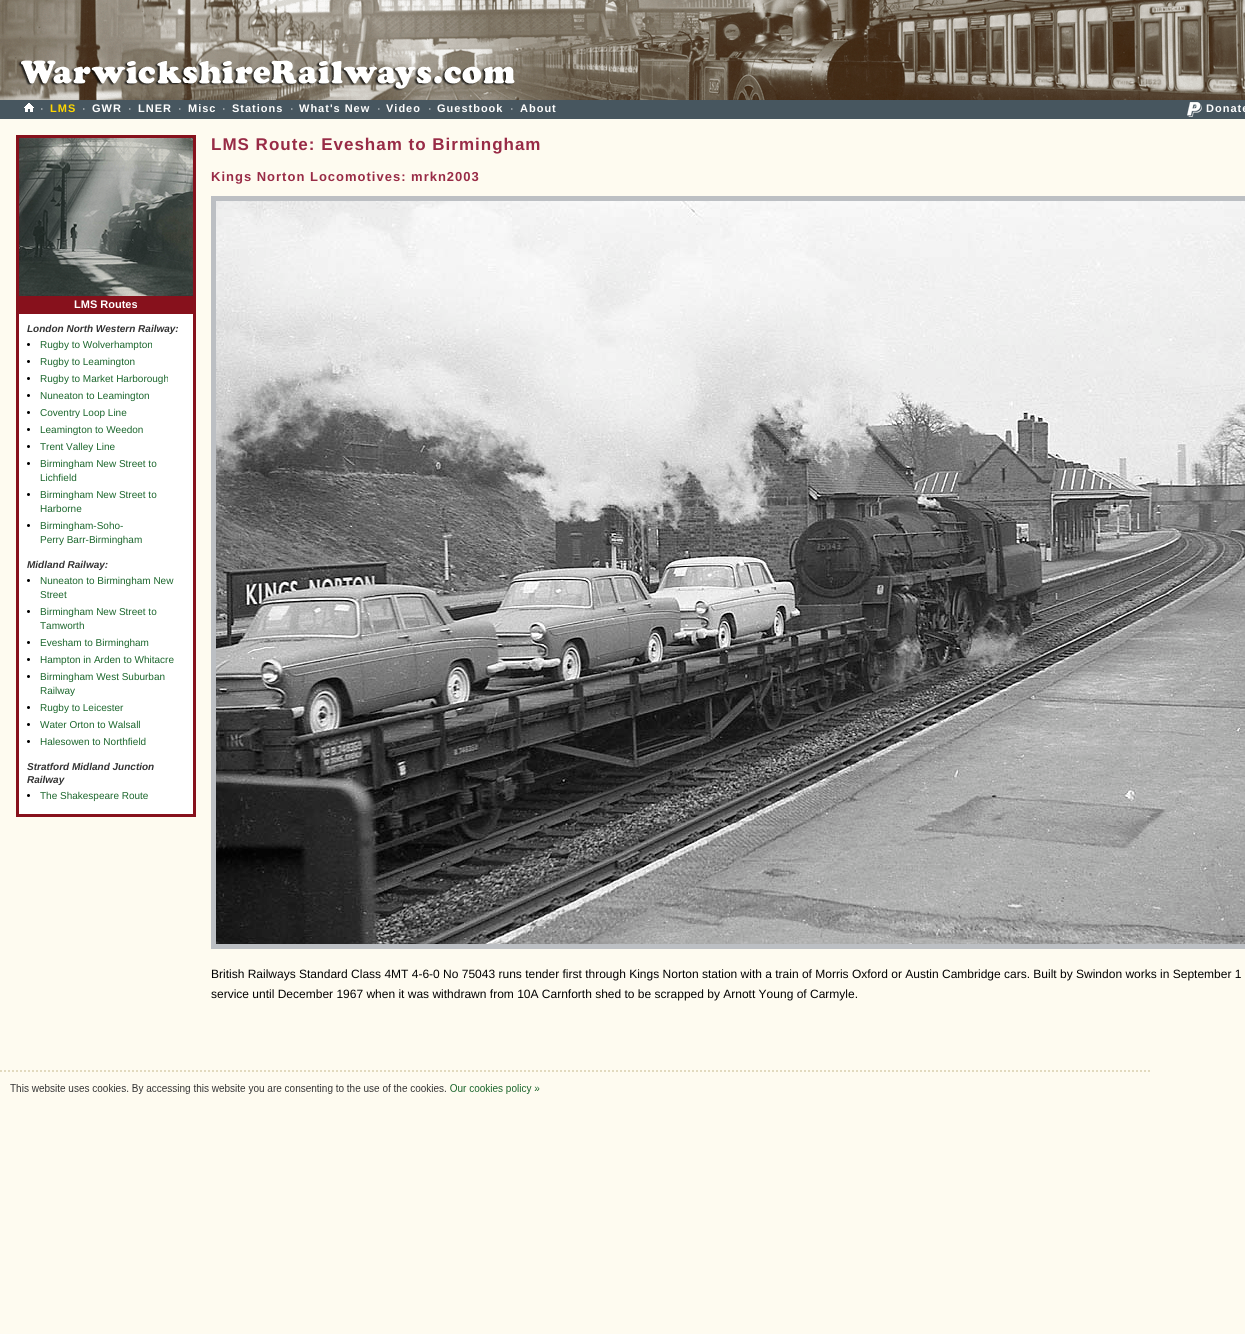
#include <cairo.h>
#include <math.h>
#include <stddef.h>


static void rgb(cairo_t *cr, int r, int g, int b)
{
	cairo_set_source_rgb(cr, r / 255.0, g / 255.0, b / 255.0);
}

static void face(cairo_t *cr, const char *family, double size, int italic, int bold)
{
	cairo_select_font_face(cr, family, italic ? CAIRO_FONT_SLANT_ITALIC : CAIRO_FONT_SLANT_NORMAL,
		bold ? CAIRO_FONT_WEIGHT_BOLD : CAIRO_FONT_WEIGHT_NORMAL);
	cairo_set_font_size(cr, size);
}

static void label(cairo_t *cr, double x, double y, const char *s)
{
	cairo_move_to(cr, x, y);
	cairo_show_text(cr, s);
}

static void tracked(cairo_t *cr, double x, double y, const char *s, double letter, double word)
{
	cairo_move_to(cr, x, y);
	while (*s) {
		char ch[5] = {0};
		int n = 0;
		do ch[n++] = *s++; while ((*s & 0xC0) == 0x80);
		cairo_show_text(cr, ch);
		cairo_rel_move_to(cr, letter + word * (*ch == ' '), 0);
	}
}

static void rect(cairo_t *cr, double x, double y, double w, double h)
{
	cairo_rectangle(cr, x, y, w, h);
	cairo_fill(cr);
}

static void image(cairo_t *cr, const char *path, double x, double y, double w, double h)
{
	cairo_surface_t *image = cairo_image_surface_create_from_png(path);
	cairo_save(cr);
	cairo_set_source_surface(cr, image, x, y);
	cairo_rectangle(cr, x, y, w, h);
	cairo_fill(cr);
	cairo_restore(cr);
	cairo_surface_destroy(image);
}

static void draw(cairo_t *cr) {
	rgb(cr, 254, 251, 240);
	cairo_paint(cr);
	image(cr, "image0.png", 0, 0, 1245, 119);
	image(cr, "image1.png", 24, 103, 10, 9);
	face(cr, "Liberation Sans", 11, 0, 0);
	rgb(cr, 255, 255, 255);
	label(cr, 40, 112, "·");
	face(cr, "Liberation Sans", 11, 0, 1);
	rgb(cr, 254, 215, 0);
	tracked(cr, 50, 112, "LMS", 1, 0);
	face(cr, "Liberation Sans", 11, 0, 0);
	rgb(cr, 255, 255, 255);
	label(cr, 82, 112, "·");
	face(cr, "Liberation Sans", 11, 0, 1);
	tracked(cr, 92, 112, "GWR", 1, 0);
	face(cr, "Liberation Sans", 11, 0, 0);
	label(cr, 128, 112, "·");
	face(cr, "Liberation Sans", 11, 0, 1);
	tracked(cr, 138, 112, "LNER", 1, 0);
	face(cr, "Liberation Sans", 11, 0, 0);
	label(cr, 178, 112, "·");
	face(cr, "Liberation Sans", 11, 0, 1);
	tracked(cr, 188, 112, "Misc", 1, 0);
	face(cr, "Liberation Sans", 11, 0, 0);
	label(cr, 222, 112, "·");
	face(cr, "Liberation Sans", 11, 0, 1);
	tracked(cr, 232, 112, "Stations", 1, 0);
	face(cr, "Liberation Sans", 11, 0, 0);
	label(cr, 290, 112, "·");
	face(cr, "Liberation Sans", 11, 0, 1);
	tracked(cr, 299, 112, "What's New", 1, 0);
	face(cr, "Liberation Sans", 11, 0, 0);
	label(cr, 377, 112, "·");
	face(cr, "Liberation Sans", 11, 0, 1);
	tracked(cr, 386, 112, "Video", 1, 0);
	face(cr, "Liberation Sans", 11, 0, 0);
	label(cr, 428, 112, "·");
	face(cr, "Liberation Sans", 11, 0, 1);
	tracked(cr, 437, 112, "Guestbook", 1, 0);
	face(cr, "Liberation Sans", 11, 0, 0);
	label(cr, 510, 112, "·");
	face(cr, "Liberation Sans", 11, 0, 1);
	tracked(cr, 520, 112, "About", 1, 0);
	image(cr, "image2.png", 1187, 102, 15, 15);
	tracked(cr, 1206, 112, "Donate", 1, 0);
	rgb(cr, 135, 17, 28);
	rect(cr, 16, 135, 180, 176);
	image(cr, "image3.png", 19, 138, 174, 158);
	rgb(cr, 255, 255, 255);
	label(cr, 74, 308, "LMS Routes");
	cairo_rectangle(cr, 17.5, 312.5, 177, 503);
	cairo_fill_preserve(cr);
	rgb(cr, 135, 17, 28);
	cairo_set_line_width(cr, 3);
	cairo_stroke(cr);
	face(cr, "Liberation Sans", 10, 1, 1);
	rgb(cr, 51, 51, 51);
	label(cr, 27, 332, "London North Western Railway:");
	rgb(cr, 0, 0, 0);
	cairo_new_path(cr);
	cairo_arc(cr, 28.5, 344.5, 1.5, 0, 2 * M_PI);
	cairo_fill(cr);
	face(cr, "Liberation Sans", 10, 0, 0);
	rgb(cr, 27, 102, 44);
	label(cr, 40, 348, "Rugby to Wolverhampton");
	rgb(cr, 0, 0, 0);
	cairo_new_path(cr);
	cairo_arc(cr, 28.5, 361.5, 1.5, 0, 2 * M_PI);
	cairo_fill(cr);
	rgb(cr, 27, 102, 44);
	label(cr, 40, 365, "Rugby to Leamington");
	rgb(cr, 0, 0, 0);
	cairo_new_path(cr);
	cairo_arc(cr, 28.5, 378.5, 1.5, 0, 2 * M_PI);
	cairo_fill(cr);
	rgb(cr, 27, 102, 44);
	label(cr, 40, 382, "Rugby to Market Harborough");
	rgb(cr, 0, 0, 0);
	cairo_new_path(cr);
	cairo_arc(cr, 28.5, 395.5, 1.5, 0, 2 * M_PI);
	cairo_fill(cr);
	rgb(cr, 27, 102, 44);
	label(cr, 40, 399, "Nuneaton to Leamington");
	rgb(cr, 0, 0, 0);
	cairo_new_path(cr);
	cairo_arc(cr, 28.5, 412.5, 1.5, 0, 2 * M_PI);
	cairo_fill(cr);
	rgb(cr, 27, 102, 44);
	label(cr, 40, 416, "Coventry Loop Line");
	rgb(cr, 0, 0, 0);
	cairo_new_path(cr);
	cairo_arc(cr, 28.5, 429.5, 1.5, 0, 2 * M_PI);
	cairo_fill(cr);
	rgb(cr, 27, 102, 44);
	label(cr, 40, 433, "Leamington to Weedon");
	rgb(cr, 0, 0, 0);
	cairo_new_path(cr);
	cairo_arc(cr, 28.5, 446.5, 1.5, 0, 2 * M_PI);
	cairo_fill(cr);
	rgb(cr, 27, 102, 44);
	label(cr, 40, 450, "Trent Valley Line");
	rgb(cr, 0, 0, 0);
	cairo_new_path(cr);
	cairo_arc(cr, 28.5, 463.5, 1.5, 0, 2 * M_PI);
	cairo_fill(cr);
	rgb(cr, 27, 102, 44);
	label(cr, 40, 467, "Birmingham New Street to");
	label(cr, 40, 481, "Lichfield");
	rgb(cr, 0, 0, 0);
	cairo_new_path(cr);
	cairo_arc(cr, 28.5, 494.5, 1.5, 0, 2 * M_PI);
	cairo_fill(cr);
	rgb(cr, 27, 102, 44);
	label(cr, 40, 498, "Birmingham New Street to");
	label(cr, 40, 512, "Harborne");
	rgb(cr, 0, 0, 0);
	cairo_new_path(cr);
	cairo_arc(cr, 28.5, 525.5, 1.5, 0, 2 * M_PI);
	cairo_fill(cr);
	rgb(cr, 27, 102, 44);
	label(cr, 40, 529, "Birmingham-Soho-");
	label(cr, 40, 543, "Perry Barr-Birmingham");
	face(cr, "Liberation Sans", 10, 1, 1);
	rgb(cr, 51, 51, 51);
	label(cr, 27, 568, "Midland Railway:");
	rgb(cr, 0, 0, 0);
	cairo_new_path(cr);
	cairo_arc(cr, 28.5, 580.5, 1.5, 0, 2 * M_PI);
	cairo_fill(cr);
	face(cr, "Liberation Sans", 10, 0, 0);
	rgb(cr, 27, 102, 44);
	label(cr, 40, 584, "Nuneaton to Birmingham New");
	label(cr, 40, 598, "Street");
	rgb(cr, 0, 0, 0);
	cairo_new_path(cr);
	cairo_arc(cr, 28.5, 611.5, 1.5, 0, 2 * M_PI);
	cairo_fill(cr);
	rgb(cr, 27, 102, 44);
	label(cr, 40, 615, "Birmingham New Street to");
	label(cr, 40, 629, "Tamworth");
	rgb(cr, 0, 0, 0);
	cairo_new_path(cr);
	cairo_arc(cr, 28.5, 642.5, 1.5, 0, 2 * M_PI);
	cairo_fill(cr);
	rgb(cr, 27, 102, 44);
	label(cr, 40, 646, "Evesham to Birmingham");
	rgb(cr, 0, 0, 0);
	cairo_new_path(cr);
	cairo_arc(cr, 28.5, 659.5, 1.5, 0, 2 * M_PI);
	cairo_fill(cr);
	rgb(cr, 27, 102, 44);
	label(cr, 40, 663, "Hampton in Arden to Whitacre");
	rgb(cr, 0, 0, 0);
	cairo_new_path(cr);
	cairo_arc(cr, 28.5, 676.5, 1.5, 0, 2 * M_PI);
	cairo_fill(cr);
	rgb(cr, 27, 102, 44);
	label(cr, 40, 680, "Birmingham West Suburban");
	label(cr, 40, 694, "Railway");
	rgb(cr, 0, 0, 0);
	cairo_new_path(cr);
	cairo_arc(cr, 28.5, 707.5, 1.5, 0, 2 * M_PI);
	cairo_fill(cr);
	rgb(cr, 27, 102, 44);
	label(cr, 40, 711, "Rugby to Leicester");
	rgb(cr, 0, 0, 0);
	cairo_new_path(cr);
	cairo_arc(cr, 28.5, 724.5, 1.5, 0, 2 * M_PI);
	cairo_fill(cr);
	rgb(cr, 27, 102, 44);
	label(cr, 40, 728, "Water Orton to Walsall");
	rgb(cr, 0, 0, 0);
	cairo_new_path(cr);
	cairo_arc(cr, 28.5, 741.5, 1.5, 0, 2 * M_PI);
	cairo_fill(cr);
	rgb(cr, 27, 102, 44);
	label(cr, 40, 745, "Halesowen to Northfield");
	face(cr, "Liberation Sans", 10, 1, 1);
	rgb(cr, 51, 51, 51);
	label(cr, 27, 770, "Stratford Midland Junction");
	label(cr, 27, 783, "Railway");
	rgb(cr, 0, 0, 0);
	cairo_new_path(cr);
	cairo_arc(cr, 28.5, 795.5, 1.5, 0, 2 * M_PI);
	cairo_fill(cr);
	face(cr, "Liberation Sans", 10, 0, 0);
	rgb(cr, 27, 102, 44);
	label(cr, 40, 799, "The Shakespeare Route");
	face(cr, "Liberation Sans", 17, 0, 1);
	rgb(cr, 152, 43, 70);
	tracked(cr, 211, 150, "LMS Route: Evesham to Birmingham", 1, 0);
	face(cr, "Liberation Sans", 13, 0, 1);
	tracked(cr, 211, 181, "Kings Norton Locomotives: mrkn2003", 1, 0);
	rgb(cr, 188, 191, 195);
	rect(cr, 211, 196, 1034, 753);
	image(cr, "image4.png", 216, 201, 1029, 743);
	face(cr, "Liberation Sans", 12, 0, 0);
	rgb(cr, 0, 0, 0);
	label(cr, 211, 978, "British Railways Standard Class 4MT 4-6-0 No 75043 runs tender first through Kings Norton station with a train of Morris Oxford or Austin Cambridge cars. Built by Swindon works in September 1");
	label(cr, 211, 998, "service until December 1967 when it was withdrawn from 10A Carnforth shed to be scrapped by Arnott Young of Carmyle.");
	cairo_new_path(cr);
	cairo_move_to(cr, 0, 1071);
	cairo_line_to(cr, 1150, 1071);
	rgb(cr, 226, 218, 191);
	cairo_set_line_width(cr, 2);
	cairo_set_dash(cr, (double[]){2, 2}, 2, 0);
	cairo_stroke(cr);
	image(cr, "image5.png", 10, 1084, 530, 10);
}

int main(void) {
	cairo_surface_t *surface = cairo_image_surface_create(CAIRO_FORMAT_RGB24, 1245, 1334);
	cairo_t *cr = cairo_create(surface);
	cairo_font_options_t *options = cairo_font_options_create();
	cairo_font_options_set_hint_metrics(options, CAIRO_HINT_METRICS_OFF);
	cairo_font_options_set_hint_style(options, CAIRO_HINT_STYLE_NONE);
	cairo_set_font_options(cr, options);
	cairo_set_miter_limit(cr, 4);
	draw(cr);
	cairo_surface_write_to_png(surface, "render.png");
	cairo_font_options_destroy(options);
	cairo_destroy(cr);
	cairo_surface_destroy(surface);
	return 0;
}
